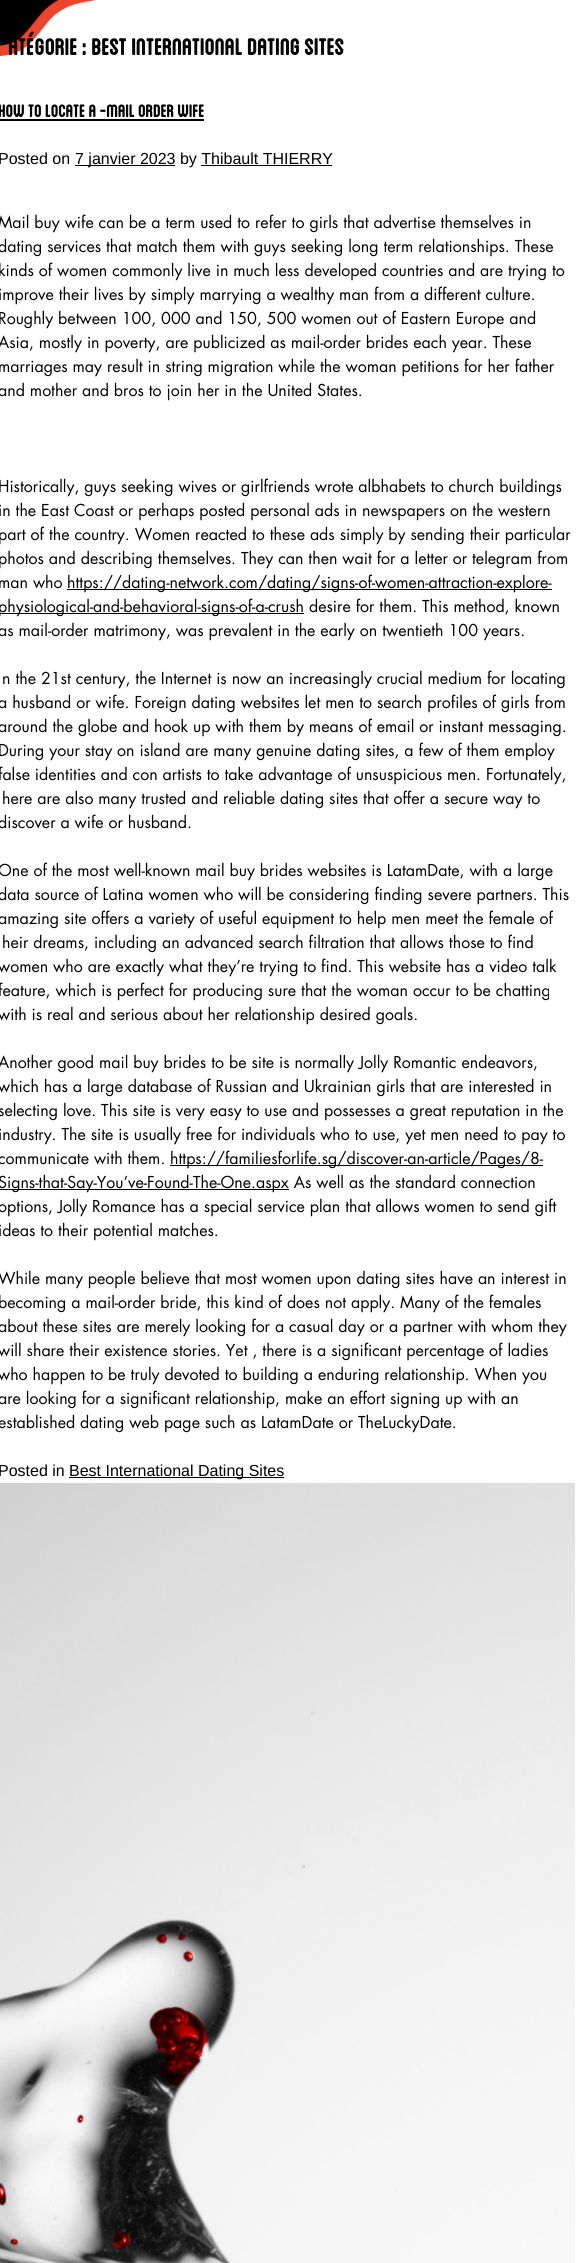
#include <cairo.h>
#include <math.h>
#include <stddef.h>


static void rgb(cairo_t *cr, int r, int g, int b)
{
	cairo_set_source_rgb(cr, r / 255.0, g / 255.0, b / 255.0);
}

static void face(cairo_t *cr, const char *family, double size, int italic, int bold)
{
	cairo_select_font_face(cr, family, italic ? CAIRO_FONT_SLANT_ITALIC : CAIRO_FONT_SLANT_NORMAL,
		bold ? CAIRO_FONT_WEIGHT_BOLD : CAIRO_FONT_WEIGHT_NORMAL);
	cairo_set_font_size(cr, size);
}

static void label(cairo_t *cr, double x, double y, const char *s)
{
	cairo_move_to(cr, x, y);
	cairo_show_text(cr, s);
}

static void rect(cairo_t *cr, double x, double y, double w, double h)
{
	cairo_rectangle(cr, x, y, w, h);
	cairo_fill(cr);
}

static void image(cairo_t *cr, const char *path, double x, double y, double w, double h)
{
	cairo_surface_t *image = cairo_image_surface_create_from_png(path);
	cairo_save(cr);
	cairo_set_source_surface(cr, image, x, y);
	cairo_rectangle(cr, x, y, w, h);
	cairo_fill(cr);
	cairo_restore(cr);
	cairo_surface_destroy(image);
}

static void draw(cairo_t *cr) {
	rgb(cr, 255, 255, 255);
	cairo_paint(cr);
	image(cr, "image0.png", 0, 0, 96, 56);
	face(cr, "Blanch", 32, 0, 1);
	rgb(cr, 0, 0, 0);
	label(cr, 8, 55, "atégorie : Best International Dating Sites");
	face(cr, "Blanch", 24, 0, 1);
	label(cr, -2, 117, "How to locate a -mail Order Wife");
	rect(cr, 0, 119, 204, 2);
	face(cr, "Liberation Sans", 16, 0, 0);
	label(cr, -2, 164, "Posted on");
	rect(cr, 75, 165, 100, 1);
	label(cr, 75, 164, "7 janvier 2023 by Thibault THIERRY");
	rect(cr, 201, 165, 131, 1);
	face(cr, "Futura", 16, 0, 0);
	label(cr, -2, 228, "Mail buy wife can be a term used to refer to girls that advertise themselves in");
	label(cr, -2, 252, "dating services that match them with guys seeking long term relationships. These");
	label(cr, -2, 276, "kinds of women commonly live in much less developed countries and are trying to");
	label(cr, -2, 300, "improve their lives by simply marrying a wealthy man from a different culture.");
	label(cr, -2, 324, "Roughly between 100, 000 and 150, 500 women out of Eastern Europe and");
	label(cr, -2, 348, "Asia, mostly in poverty, are publicized as mail-order brides each year. These");
	label(cr, -2, 372, "marriages may result in string migration while the woman petitions for her father");
	label(cr, -2, 396, "and mother and bros to join her in the United States.");
	label(cr, -2, 492, "Historically, guys seeking wives or girlfriends wrote albhabets to church buildings");
	label(cr, -2, 516, "in the East Coast or perhaps posted personal ads in newspapers on the western");
	label(cr, -2, 540, "part of the country. Women reacted to these ads simply by sending their particular");
	label(cr, -2, 564, "photos and describing themselves. They can then wait for a letter or telegram from");
	label(cr, -2, 588, "man who");
	rect(cr, 67, 589, 485, 1);
	label(cr, 67, 588, "https://dating-network.com/dating/signs-of-women-attraction-explore-");
	rect(cr, 0, 613, 304, 1);
	label(cr, -2, 612, "physiological-and-behavioral-signs-of-a-crush desire for them. This method, known");
	label(cr, -2, 636, "as mail-order matrimony, was prevalent in the early on twentieth 100 years.");
	label(cr, 2, 684, "n the 21st century, the Internet is now an increasingly crucial medium for locating");
	label(cr, -2, 708, "a husband or wife. Foreign dating websites let men to search profiles of girls from");
	label(cr, -2, 732, "around the globe and hook up with them by means of email or instant messaging.");
	label(cr, -2, 756, "During your stay on island are many genuine dating sites, a few of them employ");
	label(cr, -2, 780, "false identities and con artists to take advantage of unsuspicious men. Fortunately,");
	label(cr, 2, 804, "here are also many trusted and reliable dating sites that offer a secure way to");
	label(cr, -2, 828, "discover a wife or husband.");
	label(cr, -2, 876, "One of the most well-known mail buy brides websites is LatamDate, with a large");
	label(cr, -2, 900, "data source of Latina women who will be considering finding severe partners. This");
	label(cr, -2, 924, "amazing site offers a variety of useful equipment to help men meet the female of");
	label(cr, 2, 948, "heir dreams, including an advanced search filtration that allows those to find");
	label(cr, -2, 972, "women who are exactly what they’re trying to find. This website has a video talk");
	label(cr, -2, 996, "feature, which is perfect for producing sure that the woman occur to be chatting");
	label(cr, -2, 1020, "with is real and serious about her relationship desired goals.");
	label(cr, -2, 1068, "Another good mail buy brides to be site is normally Jolly Romantic endeavors,");
	label(cr, -2, 1092, "which has a large database of Russian and Ukrainian girls that are interested in");
	label(cr, -2, 1116, "selecting love. This site is very easy to use and possesses a great reputation in the");
	label(cr, -2, 1140, "industry. The site is usually free for individuals who to use, yet men need to pay to");
	label(cr, -2, 1164, "communicate with them.");
	rect(cr, 170, 1165, 373, 1);
	label(cr, 170, 1164, "https://familiesforlife.sg/discover-an-article/Pages/8-");
	rect(cr, 0, 1189, 289, 1);
	label(cr, -2, 1188, "Signs-that-Say-You’ve-Found-The-One.aspx As well as the standard connection");
	label(cr, -2, 1212, "options, Jolly Romance has a special service plan that allows women to send gift");
	label(cr, -2, 1236, "ideas to their potential matches.");
	label(cr, -2, 1284, "While many people believe that most women upon dating sites have an interest in");
	label(cr, -2, 1308, "becoming a mail-order bride, this kind of does not apply. Many of the females");
	label(cr, -2, 1332, "about these sites are merely looking for a casual day or a partner with whom they");
	label(cr, -2, 1356, "will share their existence stories. Yet , there is a significant percentage of ladies");
	label(cr, -2, 1380, "who happen to be truly devoted to building a enduring relationship. When you");
	label(cr, -2, 1404, "are looking for a significant relationship, make an effort signing up with an");
	label(cr, -2, 1428, "established dating web page such as LatamDate or TheLuckyDate.");
	face(cr, "Liberation Sans", 16, 0, 0);
	label(cr, -2, 1476, "Posted in");
	rect(cr, 69, 1477, 215, 1);
	label(cr, 69, 1476, "Best International Dating Sites");
	image(cr, "image1.png", 0, 1483, 575, 780);
}

int main(void) {
	cairo_surface_t *surface = cairo_image_surface_create(CAIRO_FORMAT_RGB24, 577, 2263);
	cairo_t *cr = cairo_create(surface);
	cairo_font_options_t *options = cairo_font_options_create();
	cairo_font_options_set_hint_metrics(options, CAIRO_HINT_METRICS_OFF);
	cairo_font_options_set_hint_style(options, CAIRO_HINT_STYLE_NONE);
	cairo_set_font_options(cr, options);
	cairo_set_miter_limit(cr, 4);
	draw(cr);
	cairo_surface_write_to_png(surface, "render.png");
	cairo_font_options_destroy(options);
	cairo_destroy(cr);
	cairo_surface_destroy(surface);
	return 0;
}
